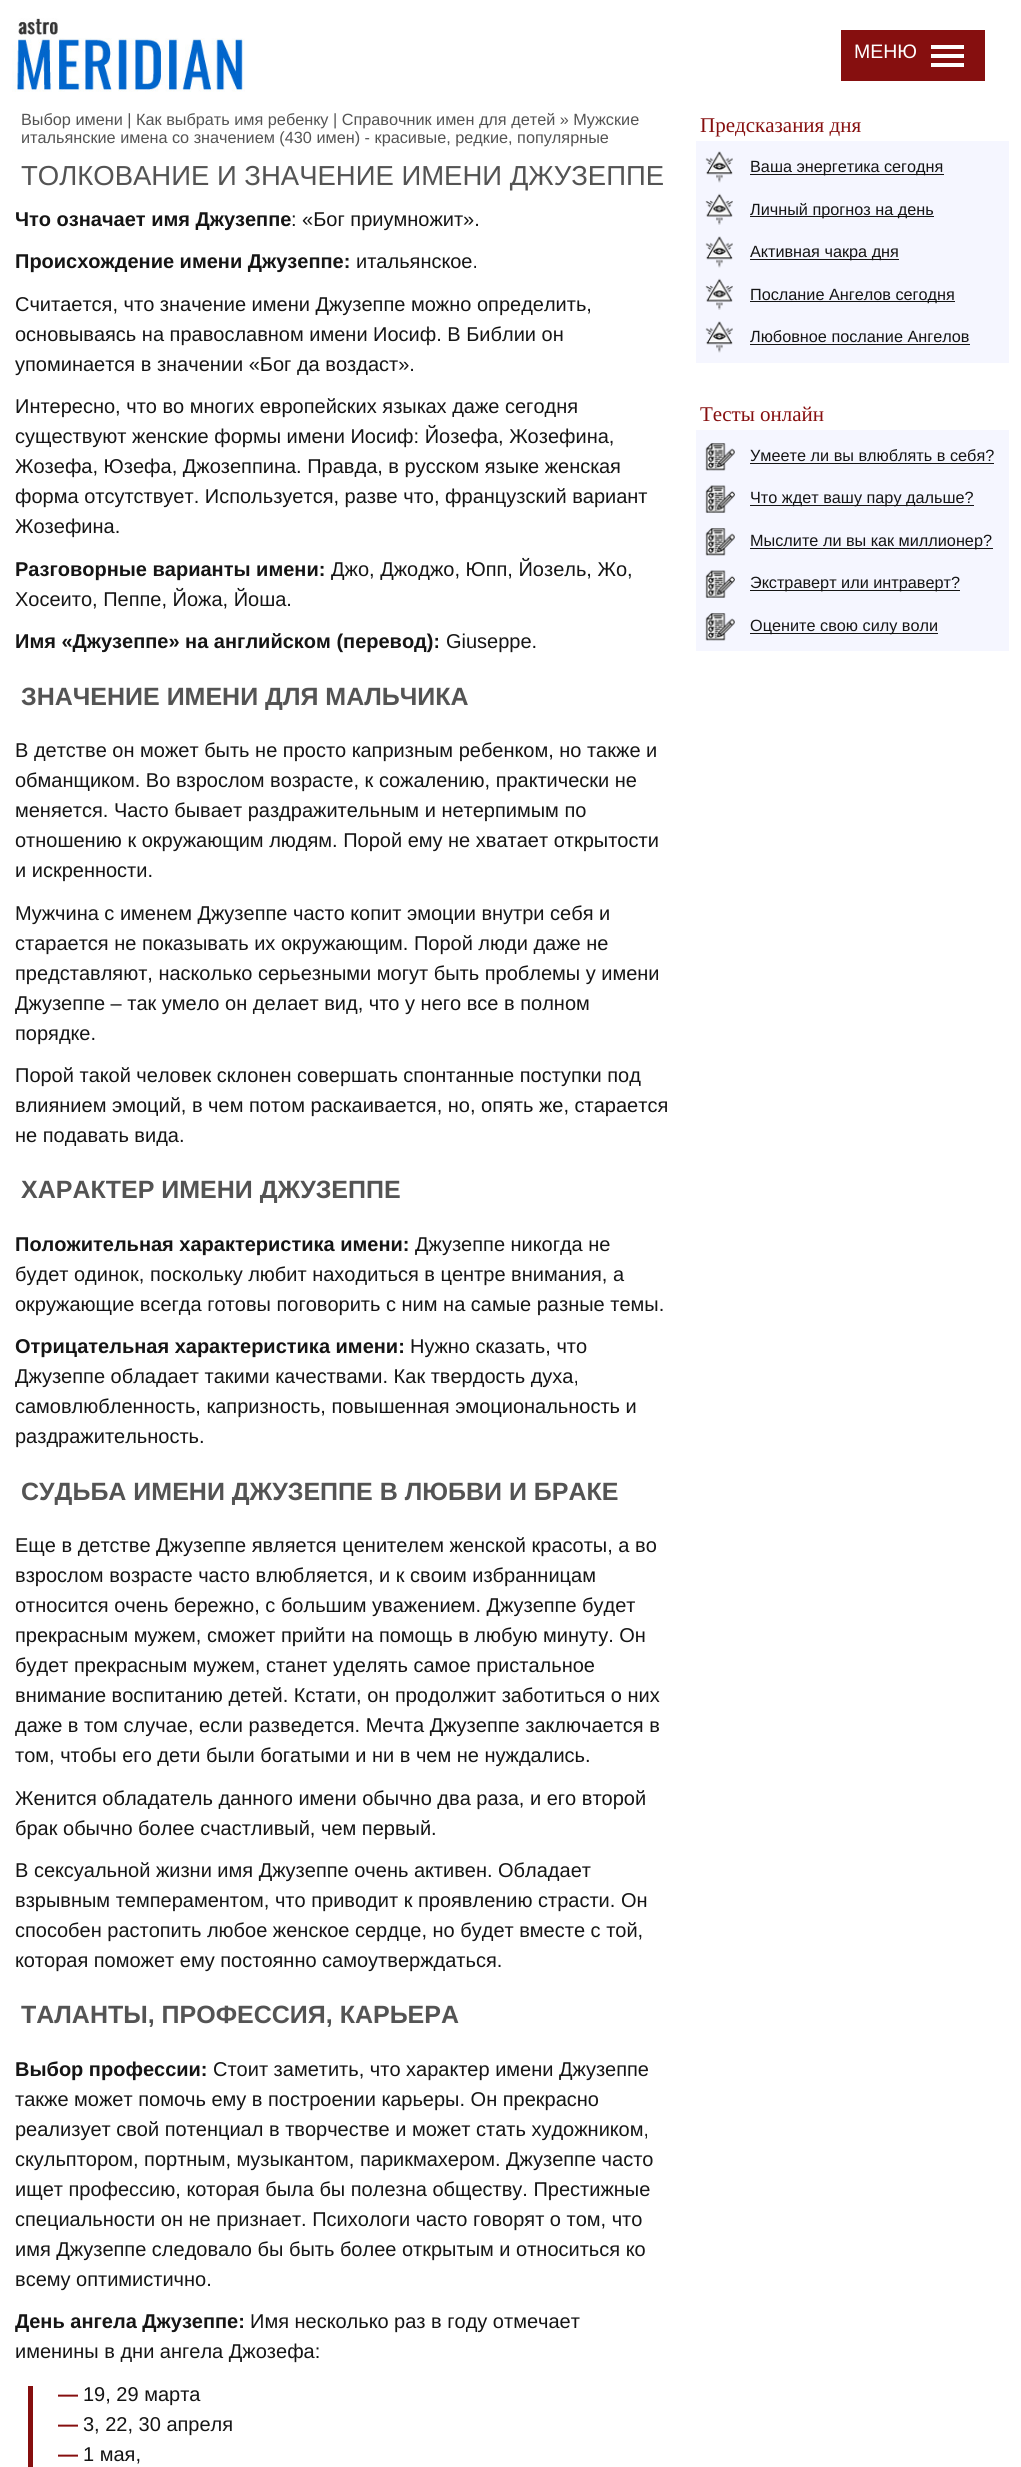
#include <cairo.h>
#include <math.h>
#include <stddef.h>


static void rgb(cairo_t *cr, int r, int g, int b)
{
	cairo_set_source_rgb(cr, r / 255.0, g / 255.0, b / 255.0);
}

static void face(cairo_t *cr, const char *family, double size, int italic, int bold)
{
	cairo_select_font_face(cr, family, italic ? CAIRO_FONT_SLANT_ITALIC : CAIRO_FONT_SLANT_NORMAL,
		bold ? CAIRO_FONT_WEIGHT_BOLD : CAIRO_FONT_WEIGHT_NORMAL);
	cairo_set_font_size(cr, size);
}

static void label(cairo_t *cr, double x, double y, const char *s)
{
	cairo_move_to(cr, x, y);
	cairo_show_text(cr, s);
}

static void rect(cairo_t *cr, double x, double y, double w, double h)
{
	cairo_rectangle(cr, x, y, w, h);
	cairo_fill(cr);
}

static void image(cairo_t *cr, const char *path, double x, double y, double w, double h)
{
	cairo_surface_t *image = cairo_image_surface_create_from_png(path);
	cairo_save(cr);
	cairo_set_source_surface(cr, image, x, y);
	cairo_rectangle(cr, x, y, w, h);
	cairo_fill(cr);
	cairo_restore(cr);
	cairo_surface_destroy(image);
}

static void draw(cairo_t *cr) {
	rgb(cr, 255, 255, 255);
	cairo_paint(cr);
	image(cr, "image0.png", 12, 18, 233, 74);
	rgb(cr, 134, 15, 15);
	rect(cr, 841, 30, 144, 51);
	face(cr, "Liberation Sans", 19.5, 0, 0);
	rgb(cr, 255, 255, 255);
	label(cr, 854, 58, "МЕНЮ");
	rect(cr, 931, 45, 33, 4);
	rect(cr, 931, 54, 33, 4);
	rect(cr, 931, 63, 33, 4);
	face(cr, "Liberation Sans", 16.25, 0, 0);
	rgb(cr, 84, 84, 84);
	label(cr, 21, 125, "Выбор имени | Как выбрать имя ребенку | Справочник имен для детей » Мужские");
	label(cr, 21, 143, "итальянские имена со значением (430 имен) - красивые, редкие, популярные");
	face(cr, "Liberation Sans", 27.5, 0, 0);
	label(cr, 21, 185, "ТОЛКОВАНИЕ И ЗНАЧЕНИЕ ИМЕНИ ДЖУЗЕППЕ");
	face(cr, "Liberation Sans", 20, 0, 1);
	rgb(cr, 21, 21, 21);
	label(cr, 15, 226, "Что означает имя Джузеппе");
	face(cr, "Liberation Sans", 20, 0, 0);
	label(cr, 291, 226, ": «Бог приумножит».");
	face(cr, "Liberation Sans", 20, 0, 1);
	label(cr, 15, 268, "Происхождение имени Джузеппе:");
	face(cr, "Liberation Sans", 20, 0, 0);
	label(cr, 356, 268, "итальянское.");
	label(cr, 15, 311, "Считается, что значение имени Джузеппе можно определить,");
	label(cr, 15, 341, "основываясь на православном имени Иосиф. В Библии он");
	label(cr, 15, 371, "упоминается в значении «Бог да воздаст».");
	label(cr, 15, 413, "Интересно, что во многих европейских языках даже сегодня");
	label(cr, 15, 443, "существуют женские формы имени Иосиф: Йозефа, Жозефина,");
	label(cr, 15, 473, "Жозефа, Юзефа, Джозеппина. Правда, в русском языке женская");
	label(cr, 15, 503, "форма отсутствует. Используется, разве что, французский вариант");
	label(cr, 15, 533, "Жозефина.");
	face(cr, "Liberation Sans", 20, 0, 1);
	label(cr, 15, 576, "Разговорные варианты имени:");
	face(cr, "Liberation Sans", 20, 0, 0);
	label(cr, 331, 576, "Джо, Джоджо, Юпп, Йозель, Жо,");
	label(cr, 15, 606, "Хосеито, Пеппе, Йожа, Йоша.");
	face(cr, "Liberation Sans", 20, 0, 1);
	label(cr, 15, 648, "Имя «Джузеппе» на английском (перевод):");
	face(cr, "Liberation Sans", 20, 0, 0);
	label(cr, 446, 648, "Giuseppe.");
	face(cr, "Liberation Sans", 25, 0, 1);
	rgb(cr, 84, 84, 84);
	label(cr, 21, 705, "ЗНАЧЕНИЕ ИМЕНИ ДЛЯ МАЛЬЧИКА");
	face(cr, "Liberation Sans", 20, 0, 0);
	rgb(cr, 21, 21, 21);
	label(cr, 15, 757, "В детстве он может быть не просто капризным ребенком, но также и");
	label(cr, 15, 787, "обманщиком. Во взрослом возрасте, к сожалению, практически не");
	label(cr, 15, 817, "меняется. Часто бывает раздражительным и нетерпимым по");
	label(cr, 15, 847, "отношению к окружающим людям. Порой ему не хватает открытости");
	label(cr, 15, 877, "и искренности.");
	label(cr, 15, 920, "Мужчина с именем Джузеппе часто копит эмоции внутри себя и");
	label(cr, 15, 950, "старается не показывать их окружающим. Порой люди даже не");
	label(cr, 15, 980, "представляют, насколько серьезными могут быть проблемы у имени");
	label(cr, 15, 1010, "Джузеппе – так умело он делает вид, что у него все в полном");
	label(cr, 15, 1040, "порядке.");
	label(cr, 15, 1082, "Порой такой человек склонен совершать спонтанные поступки под");
	label(cr, 15, 1112, "влиянием эмоций, в чем потом раскаивается, но, опять же, старается");
	label(cr, 15, 1142, "не подавать вида.");
	face(cr, "Liberation Sans", 25, 0, 1);
	rgb(cr, 84, 84, 84);
	label(cr, 21, 1198, "ХАРАКТЕР ИМЕНИ ДЖУЗЕППЕ");
	face(cr, "Liberation Sans", 20, 0, 1);
	rgb(cr, 21, 21, 21);
	label(cr, 15, 1251, "Положительная характеристика имени:");
	face(cr, "Liberation Sans", 20, 0, 0);
	label(cr, 415, 1251, "Джузеппе никогда не");
	label(cr, 15, 1281, "будет одинок, поскольку любит находиться в центре внимания, а");
	label(cr, 15, 1311, "окружающие всегда готовы поговорить с ним на самые разные темы.");
	face(cr, "Liberation Sans", 20, 0, 1);
	label(cr, 15, 1353, "Отрицательная характеристика имени:");
	face(cr, "Liberation Sans", 20, 0, 0);
	label(cr, 410, 1353, "Нужно сказать, что");
	label(cr, 15, 1383, "Джузеппе обладает такими качествами. Как твердость духа,");
	label(cr, 15, 1413, "самовлюбленность, капризность, повышенная эмоциональность и");
	label(cr, 15, 1443, "раздражительность.");
	face(cr, "Liberation Sans", 25, 0, 1);
	rgb(cr, 84, 84, 84);
	label(cr, 21, 1500, "СУДЬБА ИМЕНИ ДЖУЗЕППЕ В ЛЮБВИ И БРАКЕ");
	face(cr, "Liberation Sans", 20, 0, 0);
	rgb(cr, 21, 21, 21);
	label(cr, 15, 1552, "Еще в детстве Джузеппе является ценителем женской красоты, а во");
	label(cr, 15, 1582, "взрослом возрасте часто влюбляется, и к своим избранницам");
	label(cr, 15, 1612, "относится очень бережно, с большим уважением. Джузеппе будет");
	label(cr, 15, 1642, "прекрасным мужем, сможет прийти на помощь в любую минуту. Он");
	label(cr, 15, 1672, "будет прекрасным мужем, станет уделять самое пристальное");
	label(cr, 15, 1702, "внимание воспитанию детей. Кстати, он продолжит заботиться о них");
	label(cr, 15, 1732, "даже в том случае, если разведется. Мечта Джузеппе заключается в");
	label(cr, 15, 1762, "том, чтобы его дети были богатыми и ни в чем не нуждались.");
	label(cr, 15, 1805, "Женится обладатель данного имени обычно два раза, и его второй");
	label(cr, 15, 1835, "брак обычно более счастливый, чем первый.");
	label(cr, 15, 1877, "В сексуальной жизни имя Джузеппе очень активен. Обладает");
	label(cr, 15, 1907, "взрывным темпераментом, что приводит к проявлению страсти. Он");
	label(cr, 15, 1937, "способен растопить любое женское сердце, но будет вместе с той,");
	label(cr, 15, 1967, "которая поможет ему постоянно самоутверждаться.");
	face(cr, "Liberation Sans", 25, 0, 1);
	rgb(cr, 84, 84, 84);
	label(cr, 21, 2023, "ТАЛАНТЫ, ПРОФЕССИЯ, КАРЬЕРА");
	face(cr, "Liberation Sans", 20, 0, 1);
	rgb(cr, 21, 21, 21);
	label(cr, 15, 2076, "Выбор профессии:");
	face(cr, "Liberation Sans", 20, 0, 0);
	label(cr, 213, 2076, "Стоит заметить, что характер имени Джузеппе");
	label(cr, 15, 2106, "также может помочь ему в построении карьеры. Он прекрасно");
	label(cr, 15, 2136, "реализует свой потенциал в творчестве и может стать художником,");
	label(cr, 15, 2166, "скульптором, портным, музыкантом, парикмахером. Джузеппе часто");
	label(cr, 15, 2196, "ищет профессию, которая была бы полезна обществу. Престижные");
	label(cr, 15, 2226, "специальности он не признает. Психологи часто говорят о том, что");
	label(cr, 15, 2256, "имя Джузеппе следовало бы быть более открытым и относиться ко");
	label(cr, 15, 2286, "всему оптимистично.");
	face(cr, "Liberation Sans", 20, 0, 1);
	label(cr, 15, 2328, "День ангела Джузеппе:");
	face(cr, "Liberation Sans", 20, 0, 0);
	label(cr, 250, 2328, "Имя несколько раз в году отмечает");
	label(cr, 15, 2358, "именины в дни ангела Джозефа:");
	rgb(cr, 134, 15, 15);
	rect(cr, 28, 2386, 5, 81);
	face(cr, "Liberation Sans", 20, 0, 1);
	label(cr, 58, 2401, "—");
	face(cr, "Liberation Sans", 20, 0, 0);
	rgb(cr, 21, 21, 21);
	label(cr, 83, 2401, "19, 29 марта");
	face(cr, "Liberation Sans", 20, 0, 1);
	rgb(cr, 134, 15, 15);
	label(cr, 58, 2431, "—");
	face(cr, "Liberation Sans", 20, 0, 0);
	rgb(cr, 21, 21, 21);
	label(cr, 83, 2431, "3, 22, 30 апреля");
	face(cr, "Liberation Sans", 20, 0, 1);
	rgb(cr, 134, 15, 15);
	label(cr, 58, 2461, "—");
	face(cr, "Liberation Sans", 20, 0, 0);
	rgb(cr, 21, 21, 21);
	label(cr, 83, 2461, "1 мая,");
	face(cr, "Liberation Serif", 21, 0, 0);
	rgb(cr, 134, 15, 15);
	label(cr, 700, 132, "Предсказания дня");
	rgb(cr, 245, 246, 255);
	rect(cr, 696, 141, 313, 222);
	image(cr, "image1.png", 705, 151, 28, 32);
	rgb(cr, 21, 21, 21);
	rect(cr, 750, 174, 194, 1);
	face(cr, "Liberation Sans", 16.25, 0, 0);
	label(cr, 750, 172, "Ваша энергетика сегодня");
	image(cr, "image2.png", 705, 193, 28, 32);
	rect(cr, 750, 216, 184, 1);
	label(cr, 750, 215, "Личный прогноз на день");
	image(cr, "image1.png", 705, 236, 28, 32);
	rect(cr, 750, 259, 149, 1);
	label(cr, 750, 257, "Активная чакра дня");
	image(cr, "image2.png", 705, 278, 28, 32);
	rect(cr, 750, 301, 205, 1);
	label(cr, 750, 300, "Послание Ангелов сегодня");
	image(cr, "image1.png", 705, 321, 28, 32);
	label(cr, 750, 342, "Любовное послание Ангелов");
	rect(cr, 750, 344, 220, 1);
	face(cr, "Liberation Serif", 21, 0, 0);
	rgb(cr, 134, 15, 15);
	label(cr, 700, 421, "Тесты онлайн");
	rgb(cr, 245, 246, 255);
	rect(cr, 696, 430, 313, 221);
	image(cr, "image3.png", 705, 443, 30, 28);
	face(cr, "Liberation Sans", 16.25, 0, 0);
	rgb(cr, 21, 21, 21);
	label(cr, 750, 461, "Умеете ли вы влюблять в себя?");
	rect(cr, 750, 463, 244, 1);
	image(cr, "image4.png", 705, 485, 30, 28);
	rect(cr, 750, 505, 224, 1);
	label(cr, 750, 503, "Что ждет вашу пару дальше?");
	image(cr, "image3.png", 705, 528, 30, 28);
	rect(cr, 750, 548, 243, 1);
	label(cr, 750, 546, "Мыслите ли вы как миллионер?");
	image(cr, "image4.png", 705, 570, 30, 28);
	rect(cr, 750, 590, 210, 1);
	label(cr, 750, 588, "Экстраверт или интраверт?");
	image(cr, "image3.png", 705, 613, 30, 28);
	rect(cr, 750, 633, 188, 1);
	label(cr, 750, 631, "Оцените свою силу воли");
}

int main(void) {
	cairo_surface_t *surface = cairo_image_surface_create(CAIRO_FORMAT_RGB24, 1021, 2467);
	cairo_t *cr = cairo_create(surface);
	cairo_font_options_t *options = cairo_font_options_create();
	cairo_font_options_set_hint_metrics(options, CAIRO_HINT_METRICS_OFF);
	cairo_font_options_set_hint_style(options, CAIRO_HINT_STYLE_NONE);
	cairo_set_font_options(cr, options);
	cairo_set_miter_limit(cr, 4);
	draw(cr);
	cairo_surface_write_to_png(surface, "render.png");
	cairo_font_options_destroy(options);
	cairo_destroy(cr);
	cairo_surface_destroy(surface);
	return 0;
}
